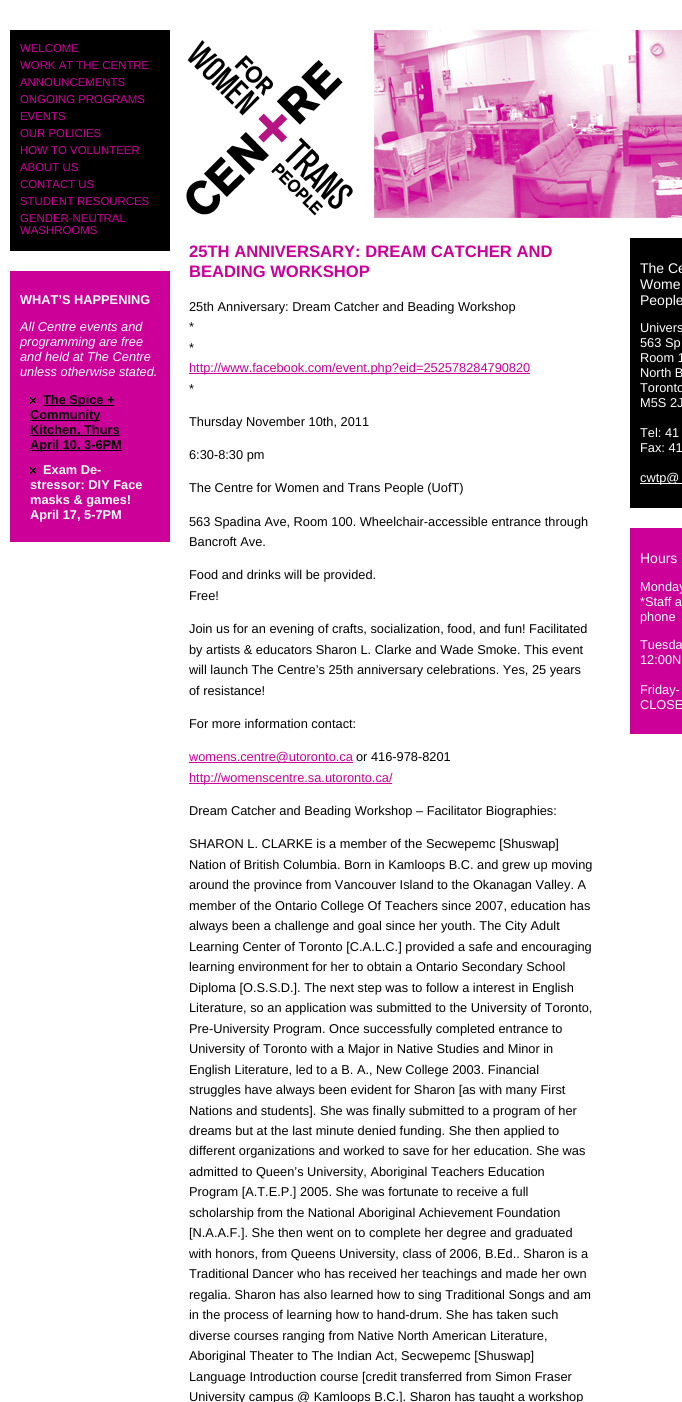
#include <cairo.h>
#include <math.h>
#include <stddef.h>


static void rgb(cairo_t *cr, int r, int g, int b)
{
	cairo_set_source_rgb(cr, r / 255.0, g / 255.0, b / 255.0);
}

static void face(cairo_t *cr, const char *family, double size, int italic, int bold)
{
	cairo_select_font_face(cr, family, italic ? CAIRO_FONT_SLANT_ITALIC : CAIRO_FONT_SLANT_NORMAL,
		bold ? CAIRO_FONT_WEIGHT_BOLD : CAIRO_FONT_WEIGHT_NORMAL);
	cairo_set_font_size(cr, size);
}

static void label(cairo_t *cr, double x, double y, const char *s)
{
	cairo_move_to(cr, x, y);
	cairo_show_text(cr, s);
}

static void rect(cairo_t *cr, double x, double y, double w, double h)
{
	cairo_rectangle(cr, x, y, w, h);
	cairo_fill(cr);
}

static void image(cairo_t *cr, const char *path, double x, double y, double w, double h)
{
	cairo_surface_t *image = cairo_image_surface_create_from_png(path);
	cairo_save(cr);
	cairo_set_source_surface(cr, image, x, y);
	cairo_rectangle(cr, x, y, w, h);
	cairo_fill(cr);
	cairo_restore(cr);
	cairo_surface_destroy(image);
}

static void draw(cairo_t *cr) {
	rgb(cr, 255, 255, 255);
	cairo_paint(cr);
	rgb(cr, 0, 0, 0);
	rect(cr, 10, 30, 160, 221);
	face(cr, "Liberation Sans", 11.4, 0, 0);
	rgb(cr, 204, 0, 153);
	label(cr, 20, 52, "WELCOME");
	label(cr, 20, 69, "WORK AT THE CENTRE");
	label(cr, 20, 86, "ANNOUNCEMENTS");
	label(cr, 20, 103, "ONGOING PROGRAMS");
	label(cr, 20, 120, "EVENTS");
	label(cr, 20, 137, "OUR POLICIES");
	label(cr, 20, 154, "HOW TO VOLUNTEER");
	label(cr, 20, 171, "ABOUT US");
	label(cr, 20, 188, "CONTACT US");
	label(cr, 20, 205, "STUDENT RESOURCES");
	label(cr, 20, 222, "GENDER-NEUTRAL");
	label(cr, 20, 234, "WASHROOMS");
	rect(cr, 10, 271, 160, 271);
	face(cr, "Liberation Sans", 12.8, 0, 1);
	rgb(cr, 255, 255, 255);
	label(cr, 20, 304, "WHAT’S HAPPENING");
	face(cr, "Liberation Sans", 12.8, 1, 0);
	label(cr, 20, 331, "All Centre events and");
	label(cr, 20, 346, "programming are free");
	label(cr, 20, 361, "and held at The Centre");
	label(cr, 20, 376, "unless otherwise stated.");
	image(cr, "image0.png", 30, 397, 6, 7);
	rgb(cr, 0, 0, 0);
	rect(cr, 43, 405, 71, 1);
	face(cr, "Liberation Sans", 12.8, 0, 1);
	label(cr, 43, 404, "The Spice +");
	rect(cr, 30, 420, 70, 1);
	label(cr, 30, 419, "Community");
	rect(cr, 30, 435, 90, 1);
	label(cr, 30, 434, "Kitchen, Thurs");
	rect(cr, 30, 450, 92, 1);
	label(cr, 30, 449, "April 10, 3-6PM");
	image(cr, "image0.png", 30, 467, 6, 7);
	rgb(cr, 255, 255, 255);
	label(cr, 43, 474, "Exam De-");
	label(cr, 30, 489, "stressor: DIY Face");
	label(cr, 30, 504, "masks & games!");
	label(cr, 30, 519, "April 17, 5-7PM");
	image(cr, "image1.png", 186, 40, 167, 176);
	image(cr, "image2.png", 374, 30, 308, 188);
	face(cr, "Liberation Sans", 16.6, 0, 1);
	rgb(cr, 204, 0, 153);
	label(cr, 189, 257, "25TH ANNIVERSARY: DREAM CATCHER AND");
	label(cr, 189, 277, "BEADING WORKSHOP");
	face(cr, "Liberation Sans", 12.8, 0, 0);
	rgb(cr, 0, 0, 0);
	label(cr, 189, 311, "25th Anniversary: Dream Catcher and Beading Workshop");
	label(cr, 189, 331, "*");
	label(cr, 189, 352, "*");
	rgb(cr, 204, 0, 153);
	rect(cr, 189, 373, 341, 1);
	label(cr, 189, 372, "http://www.facebook.com/event.php?eid=252578284790820");
	rgb(cr, 0, 0, 0);
	label(cr, 189, 393, "*");
	label(cr, 189, 426, "Thursday November 10th, 2011");
	label(cr, 189, 459, "6:30-8:30 pm");
	label(cr, 189, 492, "The Centre for Women and Trans People (UofT)");
	label(cr, 189, 526, "563 Spadina Ave, Room 100. Wheelchair-accessible entrance through");
	label(cr, 189, 546, "Bancroft Ave.");
	label(cr, 189, 579, "Food and drinks will be provided.");
	label(cr, 189, 600, "Free!");
	label(cr, 189, 633, "Join us for an evening of crafts, socialization, food, and fun! Facilitated");
	label(cr, 189, 654, "by artists & educators Sharon L. Clarke and Wade Smoke. This event");
	label(cr, 189, 674, "will launch The Centre’s 25th anniversary celebrations. Yes, 25 years");
	label(cr, 189, 695, "of resistance!");
	label(cr, 189, 728, "For more information contact:");
	rgb(cr, 204, 0, 153);
	rect(cr, 189, 762, 164, 1);
	label(cr, 189, 761, "womens.centre@utoronto.ca");
	rgb(cr, 0, 0, 0);
	label(cr, 356, 761, "or 416-978-8201");
	rgb(cr, 204, 0, 153);
	rect(cr, 189, 783, 203, 1);
	label(cr, 189, 782, "http://womenscentre.sa.utoronto.ca/");
	rgb(cr, 0, 0, 0);
	label(cr, 189, 815, "Dream Catcher and Beading Workshop – Facilitator Biographies:");
	label(cr, 189, 848, "SHARON L. CLARKE is a member of the Secwepemc [Shuswap]");
	label(cr, 189, 869, "Nation of British Columbia. Born in Kamloops B.C. and grew up moving");
	label(cr, 189, 889, "around the province from Vancouver Island to the Okanagan Valley. A");
	label(cr, 189, 910, "member of the Ontario College Of Teachers since 2007, education has");
	label(cr, 189, 930, "always been a challenge and goal since her youth. The City Adult");
	label(cr, 189, 951, "Learning Center of Toronto [C.A.L.C.] provided a safe and encouraging");
	label(cr, 189, 971, "learning environment for her to obtain a Ontario Secondary School");
	label(cr, 189, 992, "Diploma [O.S.S.D.]. The next step was to follow a interest in English");
	label(cr, 189, 1012, "Literature, so an application was submitted to the University of Toronto,");
	label(cr, 189, 1033, "Pre-University Program. Once successfully completed entrance to");
	label(cr, 189, 1053, "University of Toronto with a Major in Native Studies and Minor in");
	label(cr, 189, 1074, "English Literature, led to a B. A., New College 2003. Financial");
	label(cr, 189, 1094, "struggles have always been evident for Sharon [as with many First");
	label(cr, 189, 1115, "Nations and students]. She was finally submitted to a program of her");
	label(cr, 189, 1135, "dreams but at the last minute denied funding. She then applied to");
	label(cr, 189, 1155, "different organizations and worked to save for her education. She was");
	label(cr, 189, 1176, "admitted to Queen’s University, Aboriginal Teachers Education");
	label(cr, 189, 1196, "Program [A.T.E.P.] 2005. She was fortunate to receive a full");
	label(cr, 189, 1217, "scholarship from the National Aboriginal Achievement Foundation");
	label(cr, 189, 1237, "[N.A.A.F.]. She then went on to complete her degree and graduated");
	label(cr, 189, 1258, "with honors, from Queens University, class of 2006, B.Ed.. Sharon is a");
	label(cr, 189, 1278, "Traditional Dancer who has received her teachings and made her own");
	label(cr, 189, 1299, "regalia. Sharon has also learned how to sing Traditional Songs and am");
	label(cr, 189, 1319, "in the process of learning how to hand-drum. She has taken such");
	label(cr, 189, 1340, "diverse courses ranging from Native North American Literature,");
	label(cr, 189, 1360, "Aboriginal Theater to The Indian Act, Secwepemc [Shuswap]");
	label(cr, 189, 1381, "Language Introduction course [credit transferred from Simon Fraser");
	label(cr, 189, 1401, "University campus @ Kamloops B.C.]. Sharon has taught a workshop");
	rect(cr, 630, 238, 52, 270);
	face(cr, "Liberation Sans", 14, 0, 0);
	rgb(cr, 255, 255, 255);
	label(cr, 640, 273, "The Ce");
	label(cr, 640, 289, "Wome");
	label(cr, 640, 305, "People");
	face(cr, "Liberation Sans", 12.8, 0, 0);
	label(cr, 640, 332, "Univers");
	label(cr, 640, 347, "563 Sp");
	label(cr, 640, 362, "Room 1");
	label(cr, 640, 377, "North B");
	label(cr, 640, 392, "Toronto");
	label(cr, 640, 407, "M5S 2J");
	label(cr, 640, 437, "Tel: 41");
	label(cr, 640, 452, "Fax: 41");
	rect(cr, 640, 483, 42, 1);
	label(cr, 640, 482, "cwtp@");
	rgb(cr, 204, 0, 153);
	rect(cr, 630, 528, 52, 206);
	face(cr, "Liberation Sans", 14, 0, 0);
	rgb(cr, 255, 255, 255);
	label(cr, 640, 563, "Hours");
	face(cr, "Liberation Sans", 12.8, 0, 0);
	label(cr, 640, 591, "Monday");
	label(cr, 640, 606, "*Staff a");
	label(cr, 640, 621, "phone");
	label(cr, 640, 649, "Tuesda");
	label(cr, 640, 664, "12:00N");
	label(cr, 640, 694, "Friday-");
	label(cr, 640, 709, "CLOSE");
}

int main(void) {
	cairo_surface_t *surface = cairo_image_surface_create(CAIRO_FORMAT_RGB24, 682, 1402);
	cairo_t *cr = cairo_create(surface);
	cairo_font_options_t *options = cairo_font_options_create();
	cairo_font_options_set_hint_metrics(options, CAIRO_HINT_METRICS_OFF);
	cairo_font_options_set_hint_style(options, CAIRO_HINT_STYLE_NONE);
	cairo_set_font_options(cr, options);
	cairo_set_miter_limit(cr, 4);
	draw(cr);
	cairo_surface_write_to_png(surface, "render.png");
	cairo_font_options_destroy(options);
	cairo_destroy(cr);
	cairo_surface_destroy(surface);
	return 0;
}
